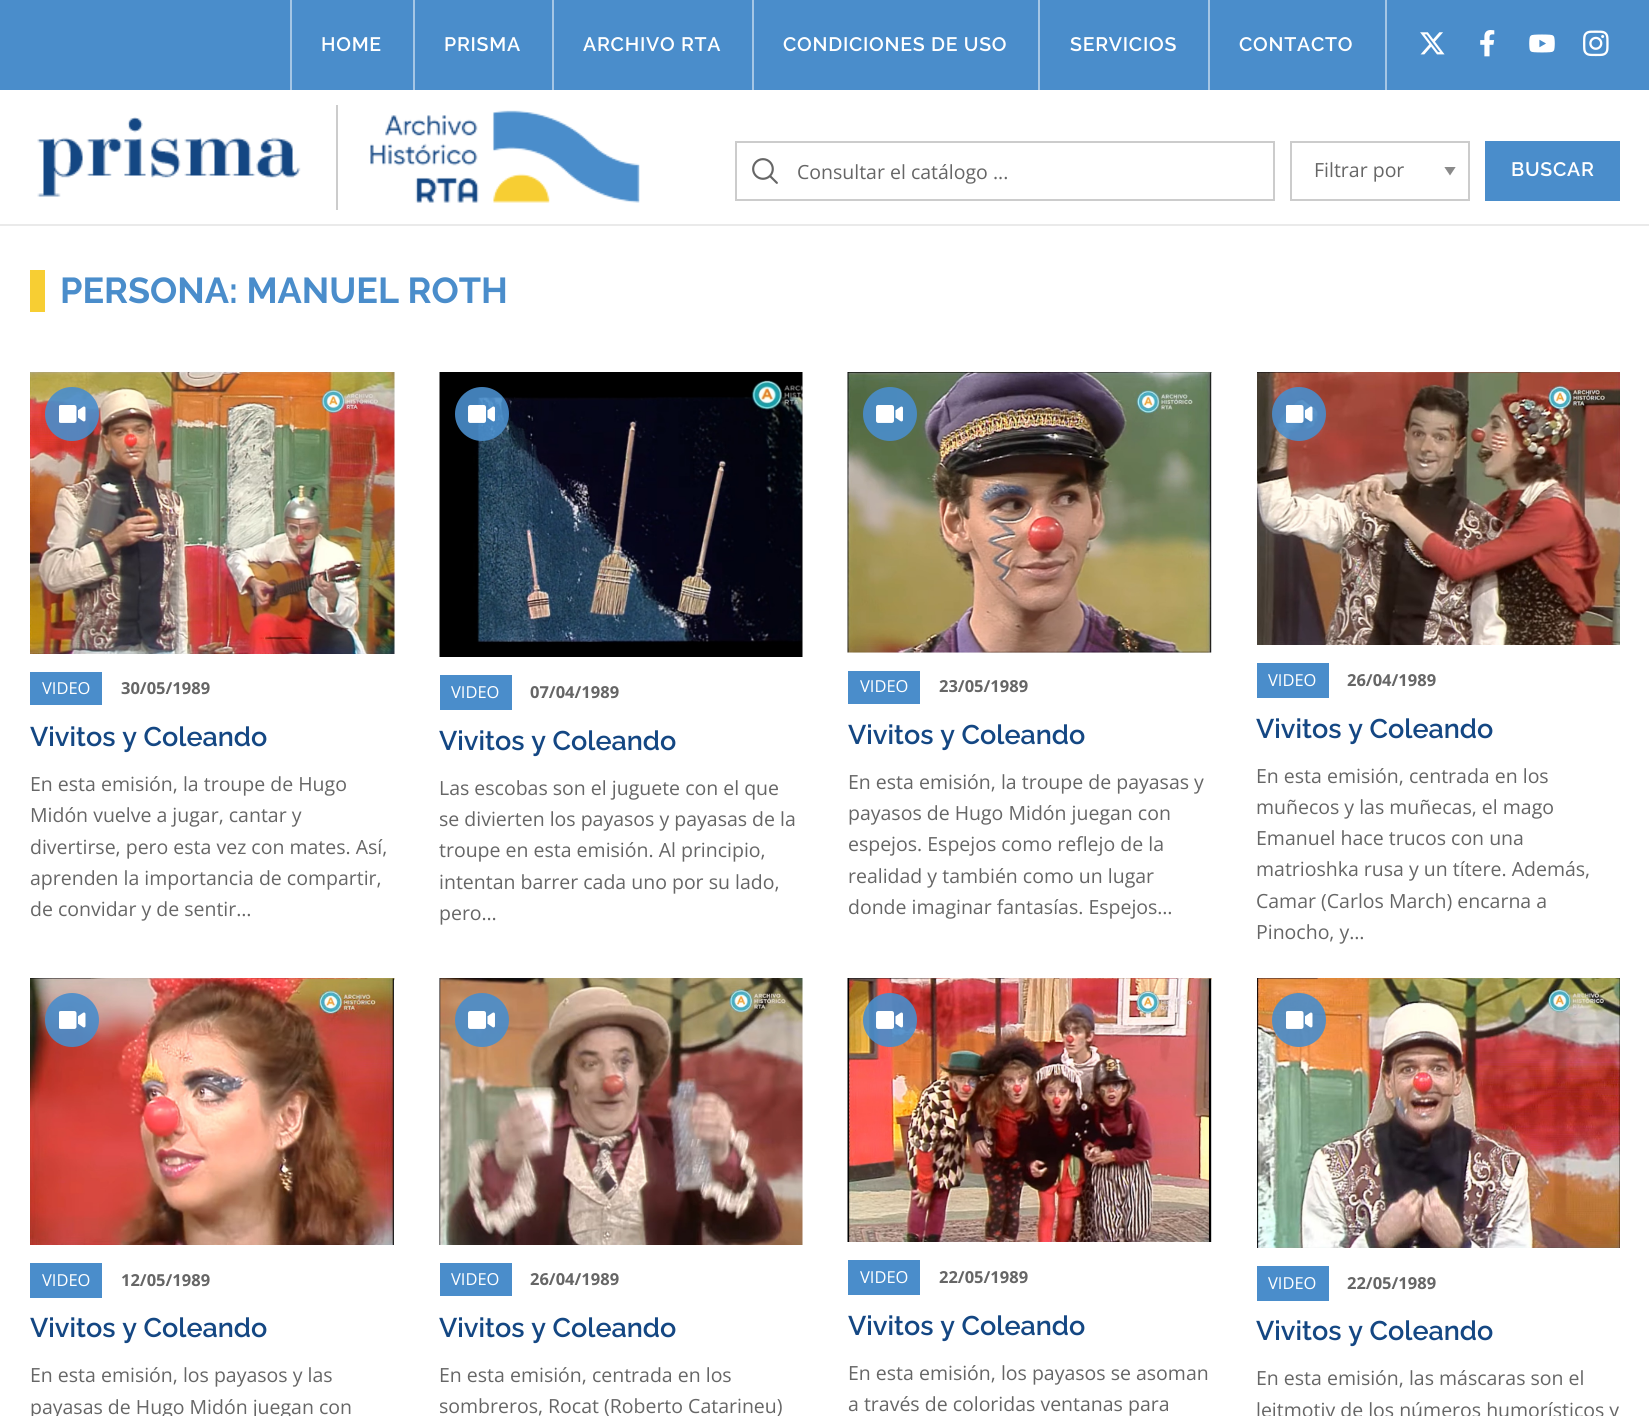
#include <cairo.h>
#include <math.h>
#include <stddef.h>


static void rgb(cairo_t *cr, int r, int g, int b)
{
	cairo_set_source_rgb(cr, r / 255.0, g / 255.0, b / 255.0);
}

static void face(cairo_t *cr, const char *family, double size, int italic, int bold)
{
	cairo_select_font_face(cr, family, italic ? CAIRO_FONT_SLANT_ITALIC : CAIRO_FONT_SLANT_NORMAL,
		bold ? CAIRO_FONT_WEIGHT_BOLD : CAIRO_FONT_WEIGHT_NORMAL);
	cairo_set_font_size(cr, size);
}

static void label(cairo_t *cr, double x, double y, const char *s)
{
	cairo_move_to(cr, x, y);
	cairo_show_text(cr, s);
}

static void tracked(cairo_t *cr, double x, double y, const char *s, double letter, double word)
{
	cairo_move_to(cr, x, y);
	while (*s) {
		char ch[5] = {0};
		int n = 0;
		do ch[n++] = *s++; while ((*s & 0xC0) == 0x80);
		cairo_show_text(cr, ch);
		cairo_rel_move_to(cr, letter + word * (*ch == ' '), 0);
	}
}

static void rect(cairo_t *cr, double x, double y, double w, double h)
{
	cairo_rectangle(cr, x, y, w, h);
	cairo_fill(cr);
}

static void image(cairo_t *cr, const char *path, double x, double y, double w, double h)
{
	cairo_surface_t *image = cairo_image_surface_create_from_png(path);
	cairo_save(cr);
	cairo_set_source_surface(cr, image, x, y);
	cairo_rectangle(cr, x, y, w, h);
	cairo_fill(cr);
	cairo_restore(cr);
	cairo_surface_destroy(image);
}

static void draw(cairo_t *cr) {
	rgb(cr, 255, 255, 255);
	cairo_paint(cr);
	rgb(cr, 74, 141, 203);
	rect(cr, 0, 0, 1649, 90);
	rgb(cr, 165, 198, 229);
	rect(cr, 290, 0, 2, 90);
	face(cr, "Raleway SemiBold", 19.5, 0, 0);
	rgb(cr, 255, 255, 255);
	tracked(cr, 321, 51, "HOME", 0.75, 0);
	rgb(cr, 165, 198, 229);
	rect(cr, 413, 0, 2, 90);
	rgb(cr, 255, 255, 255);
	tracked(cr, 444, 51, "PRISMA", 0.75, 0);
	rgb(cr, 165, 198, 229);
	rect(cr, 552, 0, 2, 90);
	rgb(cr, 255, 255, 255);
	tracked(cr, 583, 51, "ARCHIVO RTA", 0.75, 0);
	rgb(cr, 165, 198, 229);
	rect(cr, 752, 0, 2, 90);
	rgb(cr, 255, 255, 255);
	tracked(cr, 783, 51, "CONDICIONES DE USO", 0.75, 0);
	rgb(cr, 165, 198, 229);
	rect(cr, 1038, 0, 2, 90);
	rgb(cr, 255, 255, 255);
	tracked(cr, 1070, 51, "SERVICIOS", 0.75, 0);
	rgb(cr, 165, 198, 229);
	rect(cr, 1208, 0, 2, 90);
	rgb(cr, 255, 255, 255);
	tracked(cr, 1239, 51, "CONTACTO", 0.75, 0);
	rgb(cr, 165, 198, 229);
	rect(cr, 1385, 0, 2, 90);
	image(cr, "image0.png", 1420, 32, 25, 23);
	image(cr, "image1.png", 1480, 30, 15, 27);
	image(cr, "image2.png", 1529, 34, 26, 19);
	image(cr, "image3.png", 1583, 30, 26, 27);
	rgb(cr, 234, 234, 234);
	rect(cr, 0, 224, 1649, 2);
	rgb(cr, 204, 204, 204);
	rect(cr, 336, 105, 2, 105);
	image(cr, "image4.png", 37, 117, 264, 80);
	image(cr, "image5.png", 370, 110, 270, 93);
	image(cr, "image6.png", 752, 158, 26, 26);
	cairo_rectangle(cr, 736, 142, 538, 58);
	cairo_stroke(cr);
	face(cr, "Open Sans", 19.5, 0, 0);
	rgb(cr, 102, 102, 102);
	label(cr, 797, 179, "Consultar el catálogo ...");
	cairo_save(cr);
	cairo_rectangle(cr, 1443, 167, 14, 9);
	cairo_clip(cr);
	rgb(cr, 138, 138, 138);
	cairo_new_path(cr);
	cairo_move_to(cr, 1444, 166.5);
	cairo_line_to(cr, 1456, 166.5);
	cairo_line_to(cr, 1450, 175.5);
	cairo_close_path(cr);
	cairo_fill(cr);
	cairo_restore(cr);
	cairo_rectangle(cr, 1291, 142, 178, 58);
	rgb(cr, 204, 204, 204);
	cairo_stroke(cr);
	rgb(cr, 102, 102, 102);
	label(cr, 1314, 177, "Filtrar por");
	rgb(cr, 74, 141, 203);
	rect(cr, 1485, 141, 135, 60);
	face(cr, "Raleway SemiBold", 19.5, 0, 0);
	rgb(cr, 255, 255, 255);
	tracked(cr, 1511, 176, "BUSCAR", 0.75, 0);
	rgb(cr, 247, 206, 51);
	rect(cr, 30, 270, 15, 42);
	face(cr, "Raleway", 36, 0, 1);
	rgb(cr, 74, 141, 203);
	label(cr, 60, 303, "PERSONA: MANUEL ROTH");
	image(cr, "image7.png", 30, 372, 365, 282);
	cairo_set_source_rgba(cr, 0.29, 0.553, 0.796, 0.9);
	cairo_arc(cr, 72, 414, 27, 0, 2 * M_PI);
	cairo_fill(cr);
	image(cr, "image8.png", 59, 405, 27, 18);
	rgb(cr, 74, 141, 203);
	rect(cr, 30, 672, 72, 33);
	face(cr, "Open Sans", 16.5, 0, 0);
	rgb(cr, 255, 255, 255);
	label(cr, 42, 694, "VIDEO");
	face(cr, "Open Sans", 16.5, 0, 1);
	rgb(cr, 102, 102, 102);
	label(cr, 121, 694, "30/05/1989");
	face(cr, "Raleway SemiBold", 27, 0, 0);
	rgb(cr, 20, 71, 131);
	label(cr, 30, 746, "Vivitos y Coleando");
	face(cr, "Open Sans", 19.5, 0, 0);
	rgb(cr, 102, 102, 102);
	label(cr, 30, 791, "En esta emisión, la troupe de Hugo");
	label(cr, 30, 822, "Midón vuelve a jugar, cantar y");
	label(cr, 30, 854, "divertirse, pero esta vez con mates. Así,");
	label(cr, 30, 885, "aprenden la importancia de compartir,");
	label(cr, 30, 916, "de convidar y de sentir…");
	image(cr, "image9.png", 439, 372, 364, 285);
	cairo_set_source_rgba(cr, 0.29, 0.553, 0.796, 0.9);
	cairo_arc(cr, 482, 414, 27, 0, 2 * M_PI);
	cairo_fill(cr);
	image(cr, "image10.png", 468, 405, 27, 18);
	rgb(cr, 74, 141, 203);
	rect(cr, 440, 675, 72, 35);
	face(cr, "Open Sans", 16.5, 0, 0);
	rgb(cr, 255, 255, 255);
	label(cr, 451, 698, "VIDEO");
	face(cr, "Open Sans", 16.5, 0, 1);
	rgb(cr, 102, 102, 102);
	label(cr, 530, 698, "07/04/1989");
	face(cr, "Raleway SemiBold", 27, 0, 0);
	rgb(cr, 20, 71, 131);
	label(cr, 439, 750, "Vivitos y Coleando");
	face(cr, "Open Sans", 19.5, 0, 0);
	rgb(cr, 102, 102, 102);
	label(cr, 439, 795, "Las escobas son el juguete con el que");
	label(cr, 439, 826, "se divierten los payasos y payasas de la");
	label(cr, 439, 857, "troupe en esta emisión. Al principio,");
	label(cr, 439, 889, "intentan barrer cada uno por su lado,");
	label(cr, 439, 920, "pero…");
	image(cr, "image11.png", 847, 372, 365, 281);
	cairo_set_source_rgba(cr, 0.29, 0.553, 0.796, 0.9);
	cairo_arc(cr, 890, 414, 27, 0, 2 * M_PI);
	cairo_fill(cr);
	image(cr, "image12.png", 876, 405, 27, 18);
	rgb(cr, 74, 141, 203);
	rect(cr, 848, 671, 72, 33);
	face(cr, "Open Sans", 16.5, 0, 0);
	rgb(cr, 255, 255, 255);
	label(cr, 860, 692, "VIDEO");
	face(cr, "Open Sans", 16.5, 0, 1);
	rgb(cr, 102, 102, 102);
	label(cr, 939, 692, "23/05/1989");
	face(cr, "Raleway SemiBold", 27, 0, 0);
	rgb(cr, 20, 71, 131);
	label(cr, 848, 744, "Vivitos y Coleando");
	face(cr, "Open Sans", 19.5, 0, 0);
	rgb(cr, 102, 102, 102);
	label(cr, 848, 789, "En esta emisión, la troupe de payasas y");
	label(cr, 848, 820, "payasos de Hugo Midón juegan con");
	label(cr, 848, 851, "espejos. Espejos como reflejo de la");
	label(cr, 848, 883, "realidad y también como un lugar");
	label(cr, 848, 914, "donde imaginar fantasías. Espejos…");
	image(cr, "image13.png", 1257, 372, 363, 273);
	cairo_set_source_rgba(cr, 0.29, 0.553, 0.796, 0.9);
	cairo_arc(cr, 1299, 414, 27, 0, 2 * M_PI);
	cairo_fill(cr);
	image(cr, "image14.png", 1286, 405, 27, 18);
	rgb(cr, 74, 141, 203);
	rect(cr, 1257, 663, 72, 35);
	face(cr, "Open Sans", 16.5, 0, 0);
	rgb(cr, 255, 255, 255);
	label(cr, 1268, 686, "VIDEO");
	face(cr, "Open Sans", 16.5, 0, 1);
	rgb(cr, 102, 102, 102);
	label(cr, 1347, 686, "26/04/1989");
	face(cr, "Raleway SemiBold", 27, 0, 0);
	rgb(cr, 20, 71, 131);
	label(cr, 1256, 738, "Vivitos y Coleando");
	face(cr, "Open Sans", 19.5, 0, 0);
	rgb(cr, 102, 102, 102);
	label(cr, 1256, 783, "En esta emisión, centrada en los");
	label(cr, 1256, 814, "muñecos y las muñecas, el mago");
	label(cr, 1256, 845, "Emanuel hace trucos con una");
	label(cr, 1256, 876, "matrioshka rusa y un títere. Además,");
	label(cr, 1256, 908, "Camar (Carlos March) encarna a");
	label(cr, 1256, 939, "Pinocho, y…");
	image(cr, "image15.png", 30, 978, 365, 267);
	cairo_set_source_rgba(cr, 0.29, 0.553, 0.796, 0.9);
	cairo_arc(cr, 72, 1020, 27, 0, 2 * M_PI);
	cairo_fill(cr);
	image(cr, "image16.png", 59, 1011, 27, 18);
	rgb(cr, 74, 141, 203);
	rect(cr, 30, 1263, 72, 35);
	face(cr, "Open Sans", 16.5, 0, 0);
	rgb(cr, 255, 255, 255);
	label(cr, 42, 1286, "VIDEO");
	face(cr, "Open Sans", 16.5, 0, 1);
	rgb(cr, 102, 102, 102);
	label(cr, 121, 1286, "12/05/1989");
	face(cr, "Raleway SemiBold", 27, 0, 0);
	rgb(cr, 20, 71, 131);
	label(cr, 30, 1337, "Vivitos y Coleando");
	face(cr, "Open Sans", 19.5, 0, 0);
	rgb(cr, 102, 102, 102);
	label(cr, 30, 1382, "En esta emisión, los payasos y las");
	label(cr, 30, 1414, "payasas de Hugo Midón juegan con");
	image(cr, "image17.png", 439, 978, 364, 267);
	cairo_set_source_rgba(cr, 0.29, 0.553, 0.796, 0.9);
	cairo_arc(cr, 482, 1020, 27, 0, 2 * M_PI);
	cairo_fill(cr);
	image(cr, "image18.png", 468, 1011, 27, 18);
	rgb(cr, 74, 141, 203);
	rect(cr, 440, 1263, 72, 33);
	face(cr, "Open Sans", 16.5, 0, 0);
	rgb(cr, 255, 255, 255);
	label(cr, 451, 1285, "VIDEO");
	face(cr, "Open Sans", 16.5, 0, 1);
	rgb(cr, 102, 102, 102);
	label(cr, 530, 1285, "26/04/1989");
	face(cr, "Raleway SemiBold", 27, 0, 0);
	rgb(cr, 20, 71, 131);
	label(cr, 439, 1337, "Vivitos y Coleando");
	face(cr, "Open Sans", 19.5, 0, 0);
	rgb(cr, 102, 102, 102);
	label(cr, 439, 1382, "En esta emisión, centrada en los");
	label(cr, 439, 1413, "sombreros, Rocat (Roberto Catarineu)");
	image(cr, "image19.png", 847, 978, 365, 264);
	cairo_set_source_rgba(cr, 0.29, 0.553, 0.796, 0.9);
	cairo_arc(cr, 890, 1020, 27, 0, 2 * M_PI);
	cairo_fill(cr);
	image(cr, "image20.png", 876, 1011, 27, 18);
	rgb(cr, 74, 141, 203);
	rect(cr, 848, 1260, 72, 35);
	face(cr, "Open Sans", 16.5, 0, 0);
	rgb(cr, 255, 255, 255);
	label(cr, 860, 1283, "VIDEO");
	face(cr, "Open Sans", 16.5, 0, 1);
	rgb(cr, 102, 102, 102);
	label(cr, 939, 1283, "22/05/1989");
	face(cr, "Raleway SemiBold", 27, 0, 0);
	rgb(cr, 20, 71, 131);
	label(cr, 848, 1335, "Vivitos y Coleando");
	face(cr, "Open Sans", 19.5, 0, 0);
	rgb(cr, 102, 102, 102);
	label(cr, 848, 1380, "En esta emisión, los payasos se asoman");
	label(cr, 848, 1411, "a través de coloridas ventanas para");
	image(cr, "image21.png", 1257, 978, 363, 270);
	cairo_set_source_rgba(cr, 0.29, 0.553, 0.796, 0.9);
	cairo_arc(cr, 1299, 1020, 27, 0, 2 * M_PI);
	cairo_fill(cr);
	image(cr, "image22.png", 1286, 1011, 27, 18);
	rgb(cr, 74, 141, 203);
	rect(cr, 1257, 1266, 72, 35);
	face(cr, "Open Sans", 16.5, 0, 0);
	rgb(cr, 255, 255, 255);
	label(cr, 1268, 1289, "VIDEO");
	face(cr, "Open Sans", 16.5, 0, 1);
	rgb(cr, 102, 102, 102);
	label(cr, 1347, 1289, "22/05/1989");
	face(cr, "Raleway SemiBold", 27, 0, 0);
	rgb(cr, 20, 71, 131);
	label(cr, 1256, 1340, "Vivitos y Coleando");
	face(cr, "Open Sans", 19.5, 0, 0);
	rgb(cr, 102, 102, 102);
	label(cr, 1256, 1385, "En esta emisión, las máscaras son el");
	label(cr, 1256, 1417, "leitmotiv de los números humorísticos y");
}

int main(void) {
	cairo_surface_t *surface = cairo_image_surface_create(CAIRO_FORMAT_RGB24, 1649, 1416);
	cairo_t *cr = cairo_create(surface);
	cairo_font_options_t *options = cairo_font_options_create();
	cairo_font_options_set_hint_metrics(options, CAIRO_HINT_METRICS_OFF);
	cairo_font_options_set_hint_style(options, CAIRO_HINT_STYLE_NONE);
	cairo_set_font_options(cr, options);
	cairo_set_miter_limit(cr, 4);
	draw(cr);
	cairo_surface_write_to_png(surface, "render.png");
	cairo_font_options_destroy(options);
	cairo_destroy(cr);
	cairo_surface_destroy(surface);
	return 0;
}
